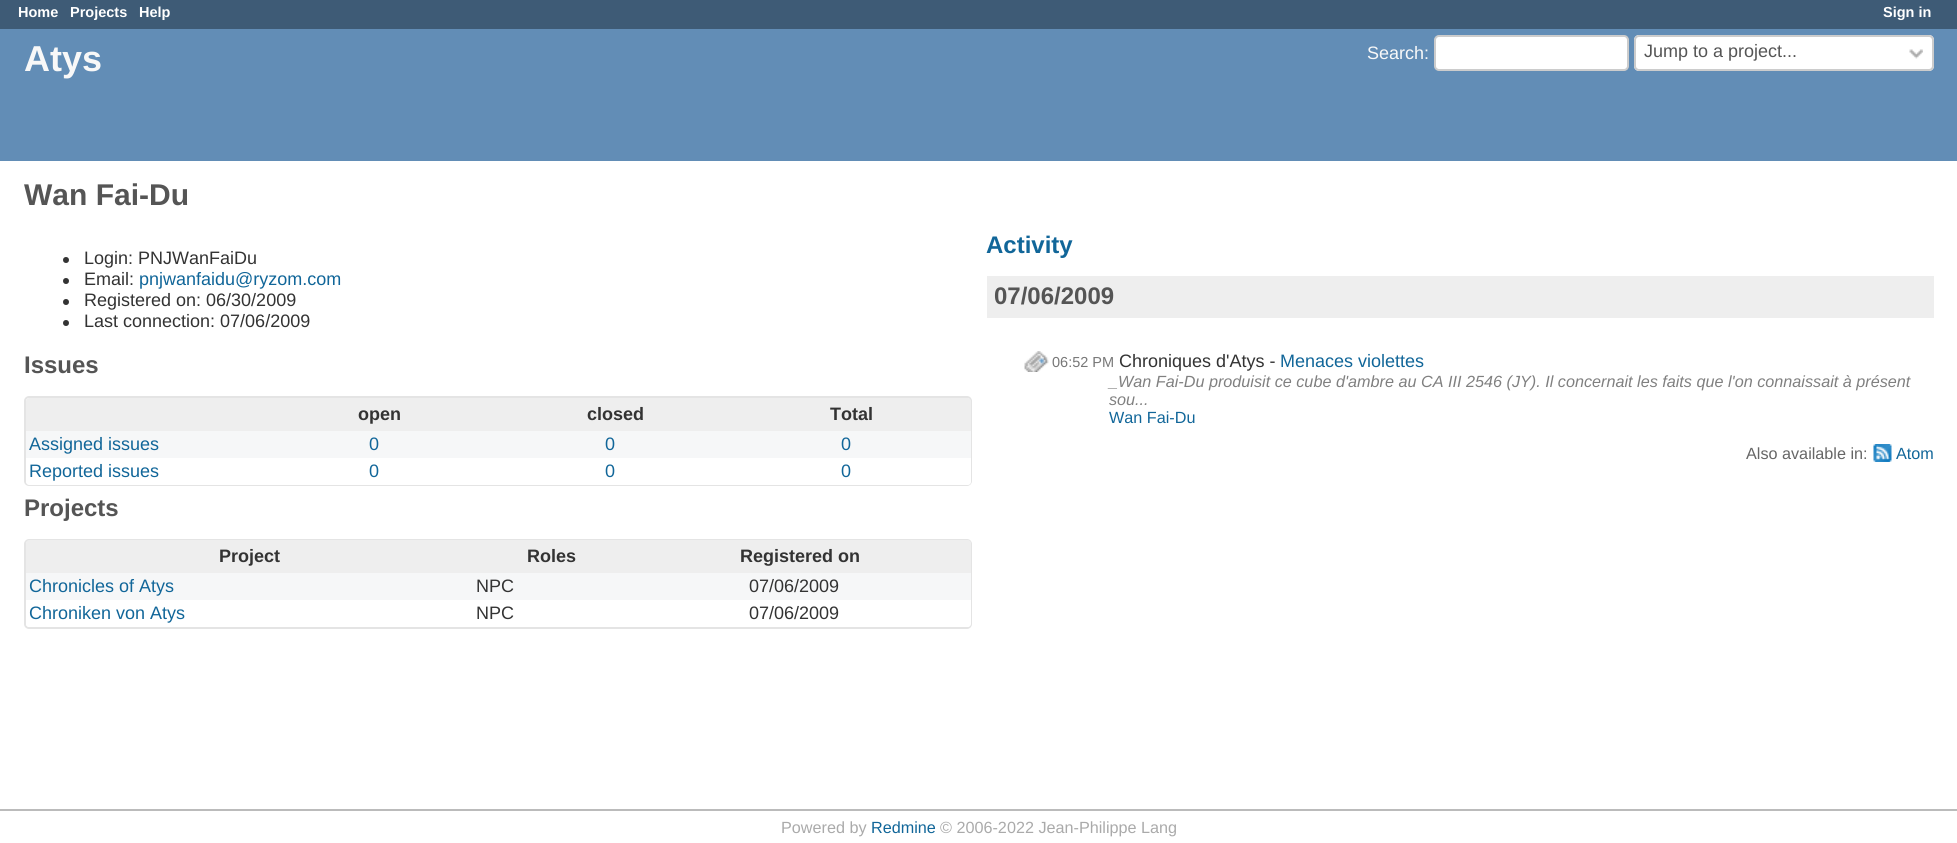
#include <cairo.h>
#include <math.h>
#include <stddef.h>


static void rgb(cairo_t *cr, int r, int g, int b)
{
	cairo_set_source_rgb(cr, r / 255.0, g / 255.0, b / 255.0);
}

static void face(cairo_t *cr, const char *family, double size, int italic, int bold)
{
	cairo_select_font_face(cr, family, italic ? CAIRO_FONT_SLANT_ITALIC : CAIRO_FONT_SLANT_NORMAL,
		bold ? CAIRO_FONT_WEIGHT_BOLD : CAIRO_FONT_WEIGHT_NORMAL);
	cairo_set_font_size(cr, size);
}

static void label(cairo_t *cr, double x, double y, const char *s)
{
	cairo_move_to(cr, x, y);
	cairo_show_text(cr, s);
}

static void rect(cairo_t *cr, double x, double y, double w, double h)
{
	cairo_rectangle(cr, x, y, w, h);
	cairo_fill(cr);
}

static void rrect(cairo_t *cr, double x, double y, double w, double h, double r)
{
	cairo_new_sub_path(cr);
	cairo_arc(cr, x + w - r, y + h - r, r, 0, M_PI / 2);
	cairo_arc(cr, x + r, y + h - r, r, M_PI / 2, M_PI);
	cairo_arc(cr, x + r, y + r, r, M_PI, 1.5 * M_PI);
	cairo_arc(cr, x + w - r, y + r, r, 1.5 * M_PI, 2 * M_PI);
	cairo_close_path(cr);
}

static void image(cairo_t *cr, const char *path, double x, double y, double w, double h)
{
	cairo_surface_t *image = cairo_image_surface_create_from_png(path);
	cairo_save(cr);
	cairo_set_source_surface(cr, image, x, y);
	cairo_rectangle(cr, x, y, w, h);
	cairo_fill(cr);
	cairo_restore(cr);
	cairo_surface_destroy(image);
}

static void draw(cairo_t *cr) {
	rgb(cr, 255, 255, 255);
	cairo_paint(cr);
	rgb(cr, 62, 91, 118);
	rect(cr, 0, 0, 1957, 29);
	face(cr, "Liberation Sans", 14.5, 0, 1);
	rgb(cr, 255, 255, 255);
	label(cr, 18, 17, "Home");
	label(cr, 70, 17, "Projects");
	label(cr, 139, 17, "Help");
	label(cr, 1883, 17, "Sign in");
	rgb(cr, 98, 141, 182);
	rect(cr, 0, 29, 1957, 132);
	face(cr, "Liberation Sans", 36, 0, 1);
	rgb(cr, 248, 248, 248);
	label(cr, 24, 71, "Atys");
	face(cr, "Liberation Sans", 18, 0, 0);
	label(cr, 1367, 59, "Search:");
	rgb(cr, 255, 255, 255);
	rrect(cr, 1435, 36, 193, 34, 4);
	cairo_fill_preserve(cr);
	rgb(cr, 204, 204, 204);
	cairo_stroke(cr);
	rgb(cr, 255, 255, 255);
	rrect(cr, 1634, 35, 300, 36, 5);
	cairo_fill(cr);
	image(cr, "image0.png", 1909, 49, 14, 10);
	rrect(cr, 1635, 36, 298, 34, 4);
	rgb(cr, 204, 204, 204);
	cairo_stroke(cr);
	rgb(cr, 85, 85, 85);
	label(cr, 1644, 57, "Jump to a project...");
	face(cr, "Liberation Sans", 30, 0, 1);
	label(cr, 24, 205, "Wan Fai-Du");
	rgb(cr, 51, 51, 51);
	cairo_new_path(cr);
	cairo_arc(cr, 66, 260, 3, 0, 2 * M_PI);
	cairo_fill(cr);
	face(cr, "Liberation Sans", 18, 0, 0);
	label(cr, 84, 264, "Login: PNJWanFaiDu");
	cairo_new_path(cr);
	cairo_arc(cr, 66, 281, 3, 0, 2 * M_PI);
	cairo_fill(cr);
	label(cr, 84, 285, "Email:");
	rgb(cr, 17, 102, 153);
	label(cr, 139, 285, "pnjwanfaidu@ryzom.com");
	rgb(cr, 51, 51, 51);
	cairo_new_path(cr);
	cairo_arc(cr, 66, 302, 3, 0, 2 * M_PI);
	cairo_fill(cr);
	label(cr, 84, 306, "Registered on: 06/30/2009");
	cairo_new_path(cr);
	cairo_arc(cr, 66, 323, 3, 0, 2 * M_PI);
	cairo_fill(cr);
	label(cr, 84, 327, "Last connection: 07/06/2009");
	face(cr, "Liberation Sans", 24, 0, 1);
	rgb(cr, 85, 85, 85);
	label(cr, 24, 373, "Issues");
	rrect(cr, 25, 397, 946, 88, 4);
	rgb(cr, 228, 228, 228);
	cairo_stroke(cr);
	rgb(cr, 238, 238, 238);
	cairo_new_path(cr);
	cairo_move_to(cr, 29, 398);
	cairo_line_to(cr, 261, 398);
	cairo_line_to(cr, 261, 431);
	cairo_line_to(cr, 26, 431);
	cairo_line_to(cr, 26, 401);
	cairo_curve_to(cr, 26, 399.5, 27.5, 398, 29, 398);
	cairo_close_path(cr);
	cairo_fill(cr);
	rect(cr, 261, 398, 473, 33);
	face(cr, "Liberation Sans", 18, 0, 1);
	rgb(cr, 51, 51, 51);
	label(cr, 358, 420, "open");
	label(cr, 587, 420, "closed");
	rgb(cr, 238, 238, 238);
	cairo_new_path(cr);
	cairo_move_to(cr, 734, 398);
	cairo_line_to(cr, 968, 398);
	cairo_curve_to(cr, 969.5, 398, 971, 399.5, 971, 401);
	cairo_line_to(cr, 971, 431);
	cairo_line_to(cr, 734, 431);
	cairo_close_path(cr);
	cairo_fill(cr);
	rgb(cr, 51, 51, 51);
	label(cr, 830, 420, "Total");
	rgb(cr, 246, 247, 248);
	rect(cr, 26, 431, 945, 27);
	face(cr, "Liberation Sans", 18, 0, 0);
	rgb(cr, 17, 102, 153);
	label(cr, 29, 450, "Assigned issues");
	label(cr, 369, 450, "0");
	label(cr, 605, 450, "0");
	label(cr, 841, 450, "0");
	rgb(cr, 255, 255, 255);
	cairo_new_path(cr);
	cairo_move_to(cr, 26, 458);
	cairo_line_to(cr, 971, 458);
	cairo_line_to(cr, 971, 482);
	cairo_curve_to(cr, 971, 483.5, 969.5, 485, 968, 485);
	cairo_line_to(cr, 29, 485);
	cairo_curve_to(cr, 27.5, 485, 26, 483.5, 26, 482);
	cairo_close_path(cr);
	cairo_fill(cr);
	rgb(cr, 17, 102, 153);
	label(cr, 29, 477, "Reported issues");
	label(cr, 369, 477, "0");
	label(cr, 605, 477, "0");
	label(cr, 841, 477, "0");
	face(cr, "Liberation Sans", 24, 0, 1);
	rgb(cr, 85, 85, 85);
	label(cr, 24, 516, "Projects");
	rrect(cr, 25, 540, 946, 88, 4);
	rgb(cr, 228, 228, 228);
	cairo_stroke(cr);
	rgb(cr, 238, 238, 238);
	cairo_new_path(cr);
	cairo_move_to(cr, 29, 540);
	cairo_line_to(cr, 473, 540);
	cairo_line_to(cr, 473, 573);
	cairo_line_to(cr, 26, 573);
	cairo_line_to(cr, 26, 543);
	cairo_curve_to(cr, 26, 541.5, 27.5, 540, 29, 540);
	cairo_close_path(cr);
	cairo_fill(cr);
	face(cr, "Liberation Sans", 18, 0, 1);
	rgb(cr, 51, 51, 51);
	label(cr, 219, 562, "Project");
	rgb(cr, 238, 238, 238);
	rect(cr, 473, 540, 157, 33);
	rgb(cr, 51, 51, 51);
	label(cr, 527, 562, "Roles");
	rgb(cr, 238, 238, 238);
	cairo_new_path(cr);
	cairo_move_to(cr, 630, 540);
	cairo_line_to(cr, 968, 540);
	cairo_curve_to(cr, 969.5, 540, 971, 541.5, 971, 543);
	cairo_line_to(cr, 971, 573);
	cairo_line_to(cr, 630, 573);
	cairo_close_path(cr);
	cairo_fill(cr);
	rgb(cr, 51, 51, 51);
	label(cr, 740, 562, "Registered on");
	rgb(cr, 246, 247, 248);
	rect(cr, 26, 573, 945, 27);
	face(cr, "Liberation Sans", 18, 0, 0);
	rgb(cr, 17, 102, 153);
	label(cr, 29, 592, "Chronicles of Atys");
	rgb(cr, 51, 51, 51);
	label(cr, 476, 592, "NPC");
	label(cr, 749, 592, "07/06/2009");
	rgb(cr, 255, 255, 255);
	cairo_new_path(cr);
	cairo_move_to(cr, 26, 600);
	cairo_line_to(cr, 971, 600);
	cairo_line_to(cr, 971, 624);
	cairo_curve_to(cr, 971, 625.5, 969.5, 627, 968, 627);
	cairo_line_to(cr, 29, 627);
	cairo_curve_to(cr, 27.5, 627, 26, 625.5, 26, 624);
	cairo_close_path(cr);
	cairo_fill(cr);
	rgb(cr, 17, 102, 153);
	label(cr, 29, 619, "Chroniken von Atys");
	rgb(cr, 51, 51, 51);
	label(cr, 476, 619, "NPC");
	label(cr, 749, 619, "07/06/2009");
	face(cr, "Liberation Sans", 24, 0, 1);
	rgb(cr, 17, 102, 153);
	label(cr, 986, 253, "Activity");
	rgb(cr, 238, 238, 238);
	rect(cr, 987, 276, 947, 42);
	rgb(cr, 85, 85, 85);
	label(cr, 994, 304, "07/06/2009");
	image(cr, "image1.png", 1024, 351, 25, 21);
	face(cr, "Liberation Sans", 14.5, 0, 0);
	rgb(cr, 119, 119, 119);
	label(cr, 1052, 367, "06:52 PM");
	face(cr, "Liberation Sans", 18, 0, 0);
	rgb(cr, 51, 51, 51);
	label(cr, 1119, 367, "Chroniques d'Atys -");
	rgb(cr, 17, 102, 153);
	label(cr, 1280, 367, "Menaces violettes");
	face(cr, "Liberation Sans", 16.2, 1, 0);
	rgb(cr, 128, 128, 128);
	label(cr, 1109, 387, "_Wan Fai-Du produisit ce cube d'ambre au CA III 2546 (JY). Il concernait les faits que l'on connaissait à présent");
	label(cr, 1109, 405, "sou...");
	face(cr, "Liberation Sans", 16.2, 0, 0);
	rgb(cr, 17, 102, 153);
	label(cr, 1109, 423, "Wan Fai-Du");
	rgb(cr, 102, 102, 102);
	label(cr, 1746, 459, "Also available in:");
	image(cr, "image2.png", 1873, 444, 19, 18);
	rgb(cr, 17, 102, 153);
	label(cr, 1896, 459, "Atom");
	rgb(cr, 187, 187, 187);
	rect(cr, 0, 809, 1957, 2);
	rgb(cr, 170, 170, 170);
	label(cr, 781, 833, "Powered by");
	rgb(cr, 17, 102, 153);
	label(cr, 871, 833, "Redmine");
	rgb(cr, 170, 170, 170);
	label(cr, 940, 833, "© 2006-2022 Jean-Philippe Lang");
}

int main(void) {
	cairo_surface_t *surface = cairo_image_surface_create(CAIRO_FORMAT_RGB24, 1957, 843);
	cairo_t *cr = cairo_create(surface);
	cairo_font_options_t *options = cairo_font_options_create();
	cairo_font_options_set_hint_metrics(options, CAIRO_HINT_METRICS_OFF);
	cairo_font_options_set_hint_style(options, CAIRO_HINT_STYLE_NONE);
	cairo_set_font_options(cr, options);
	cairo_set_miter_limit(cr, 4);
	draw(cr);
	cairo_surface_write_to_png(surface, "render.png");
	cairo_font_options_destroy(options);
	cairo_destroy(cr);
	cairo_surface_destroy(surface);
	return 0;
}
